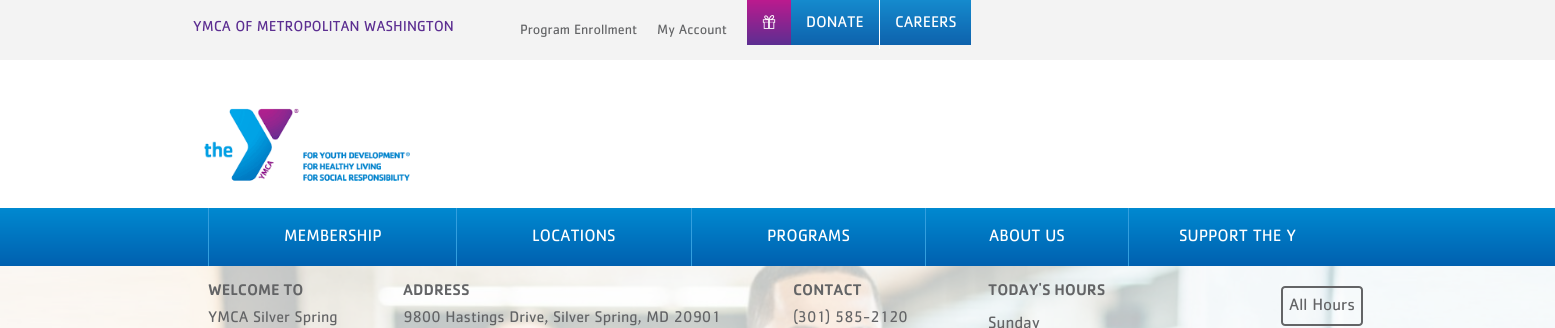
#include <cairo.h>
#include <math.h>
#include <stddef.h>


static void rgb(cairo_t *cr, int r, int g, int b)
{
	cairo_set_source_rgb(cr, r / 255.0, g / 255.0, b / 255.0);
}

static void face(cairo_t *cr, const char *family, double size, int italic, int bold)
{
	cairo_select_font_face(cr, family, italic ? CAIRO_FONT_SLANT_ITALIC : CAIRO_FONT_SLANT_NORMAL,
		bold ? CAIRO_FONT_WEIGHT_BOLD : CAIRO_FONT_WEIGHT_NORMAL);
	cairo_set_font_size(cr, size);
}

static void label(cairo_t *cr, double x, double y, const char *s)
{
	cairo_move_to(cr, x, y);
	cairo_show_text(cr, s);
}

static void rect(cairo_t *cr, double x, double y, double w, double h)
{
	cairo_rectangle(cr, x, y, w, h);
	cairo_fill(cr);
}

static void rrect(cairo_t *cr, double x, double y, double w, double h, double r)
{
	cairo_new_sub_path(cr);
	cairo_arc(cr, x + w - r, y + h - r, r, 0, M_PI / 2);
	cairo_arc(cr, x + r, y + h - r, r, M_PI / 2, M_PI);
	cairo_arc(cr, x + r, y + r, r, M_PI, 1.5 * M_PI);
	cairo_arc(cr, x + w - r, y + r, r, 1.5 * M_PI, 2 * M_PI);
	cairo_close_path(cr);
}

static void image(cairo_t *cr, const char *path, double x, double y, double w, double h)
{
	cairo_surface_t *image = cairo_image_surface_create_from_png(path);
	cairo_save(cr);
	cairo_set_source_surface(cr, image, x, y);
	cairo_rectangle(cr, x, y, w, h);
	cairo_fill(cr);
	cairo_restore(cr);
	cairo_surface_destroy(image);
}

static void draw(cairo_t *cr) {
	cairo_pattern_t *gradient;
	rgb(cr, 255, 255, 255);
	cairo_paint(cr);
	rgb(cr, 243, 243, 243);
	rect(cr, 0, 0, 1555, 60);
	face(cr, "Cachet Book", 15, 0, 0);
	rgb(cr, 92, 46, 145);
	label(cr, 193, 31, "YMCA OF METROPOLITAN WASHINGTON");
	gradient = cairo_pattern_create_linear(769, 0, 769, 45);
	cairo_pattern_add_color_stop_rgba(gradient, 0, 0.733, 0.102, 0.557, 1);
	cairo_pattern_add_color_stop_rgba(gradient, 1, 0.361, 0.18, 0.569, 1);
	cairo_set_source(cr, gradient);
	cairo_pattern_destroy(gradient);
	rect(cr, 747, 0, 44, 45);
	image(cr, "image0.png", 762, 15, 14, 14);
	gradient = cairo_pattern_create_linear(835, 0, 835, 45);
	cairo_pattern_add_color_stop_rgba(gradient, 0, 0.082, 0.541, 0.804, 1);
	cairo_pattern_add_color_stop_rgba(gradient, 1, 0.055, 0.384, 0.675, 1);
	cairo_set_source(cr, gradient);
	cairo_pattern_destroy(gradient);
	rect(cr, 791, 0, 88, 45);
	face(cr, "Cachet Book", 16, 0, 0);
	rgb(cr, 255, 255, 255);
	label(cr, 806, 27, "DONATE");
	rect(cr, 879, 0, 1, 49);
	gradient = cairo_pattern_create_linear(926, 0, 926, 45);
	cairo_pattern_add_color_stop_rgba(gradient, 0, 0.082, 0.541, 0.804, 1);
	cairo_pattern_add_color_stop_rgba(gradient, 1, 0.055, 0.384, 0.675, 1);
	cairo_set_source(cr, gradient);
	cairo_pattern_destroy(gradient);
	rect(cr, 880, 0, 91, 45);
	rgb(cr, 255, 255, 255);
	label(cr, 895, 27, "CAREERS");
	face(cr, "Cachet Book", 14, 0, 0);
	rgb(cr, 99, 100, 102);
	label(cr, 520, 34, "Program Enrollment");
	label(cr, 657, 34, "My Account");
	image(cr, "image1.png", 204, 108, 206, 73);
	gradient = cairo_pattern_create_linear(778, 208, 778, 266);
	cairo_pattern_add_color_stop_rgba(gradient, 0, 0, 0.537, 0.816, 1);
	cairo_pattern_add_color_stop_rgba(gradient, 1, 0, 0.376, 0.686, 1);
	cairo_set_source(cr, gradient);
	cairo_pattern_destroy(gradient);
	rect(cr, 0, 208, 1555, 58);
	rgb(cr, 51, 159, 222);
	rect(cr, 208, 208, 1, 58);
	face(cr, "Cachet Book", 17, 0, 0);
	rgb(cr, 255, 255, 255);
	label(cr, 284, 241, "MEMBERSHIP");
	rgb(cr, 51, 159, 222);
	rect(cr, 456, 208, 1, 58);
	rgb(cr, 255, 255, 255);
	label(cr, 532, 241, "LOCATIONS");
	rgb(cr, 51, 159, 222);
	rect(cr, 691, 208, 1, 58);
	rgb(cr, 255, 255, 255);
	label(cr, 767, 241, "PROGRAMS");
	rgb(cr, 51, 159, 222);
	rect(cr, 925, 208, 1, 58);
	rgb(cr, 255, 255, 255);
	label(cr, 989, 241, "ABOUT US");
	rgb(cr, 51, 159, 222);
	rect(cr, 1128, 208, 1, 58);
	rgb(cr, 255, 255, 255);
	label(cr, 1179, 241, "SUPPORT THE Y");
	image(cr, "image2.png", 0, 266, 1555, 62);
	face(cr, "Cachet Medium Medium", 16, 0, 0);
	rgb(cr, 99, 100, 102);
	label(cr, 208, 295, "WELCOME TO");
	face(cr, "Cachet Book", 16, 0, 0);
	label(cr, 208, 322, "YMCA Silver Spring");
	face(cr, "Cachet Medium Medium", 16, 0, 0);
	label(cr, 403, 295, "ADDRESS");
	face(cr, "Cachet Book", 16, 0, 0);
	label(cr, 403, 322, "9800 Hastings Drive, Silver Spring, MD 20901");
	face(cr, "Cachet Medium Medium", 16, 0, 0);
	label(cr, 793, 295, "CONTACT");
	face(cr, "Cachet Book", 16, 0, 0);
	label(cr, 793, 322, "(301) 585-2120");
	face(cr, "Cachet Medium Medium", 16, 0, 0);
	label(cr, 988, 295, "TODAY'S HOURS");
	rrect(cr, 1282, 287, 80, 38, 3);
	cairo_stroke(cr);
	face(cr, "Cachet Book", 17, 0, 0);
	label(cr, 1289, 310, "All Hours");
	label(cr, 988, 328, "Sunday");
}

int main(void) {
	cairo_surface_t *surface = cairo_image_surface_create(CAIRO_FORMAT_RGB24, 1555, 328);
	cairo_t *cr = cairo_create(surface);
	cairo_font_options_t *options = cairo_font_options_create();
	cairo_font_options_set_hint_metrics(options, CAIRO_HINT_METRICS_OFF);
	cairo_font_options_set_hint_style(options, CAIRO_HINT_STYLE_NONE);
	cairo_set_font_options(cr, options);
	cairo_set_miter_limit(cr, 4);
	draw(cr);
	cairo_surface_write_to_png(surface, "render.png");
	cairo_font_options_destroy(options);
	cairo_destroy(cr);
	cairo_surface_destroy(surface);
	return 0;
}
